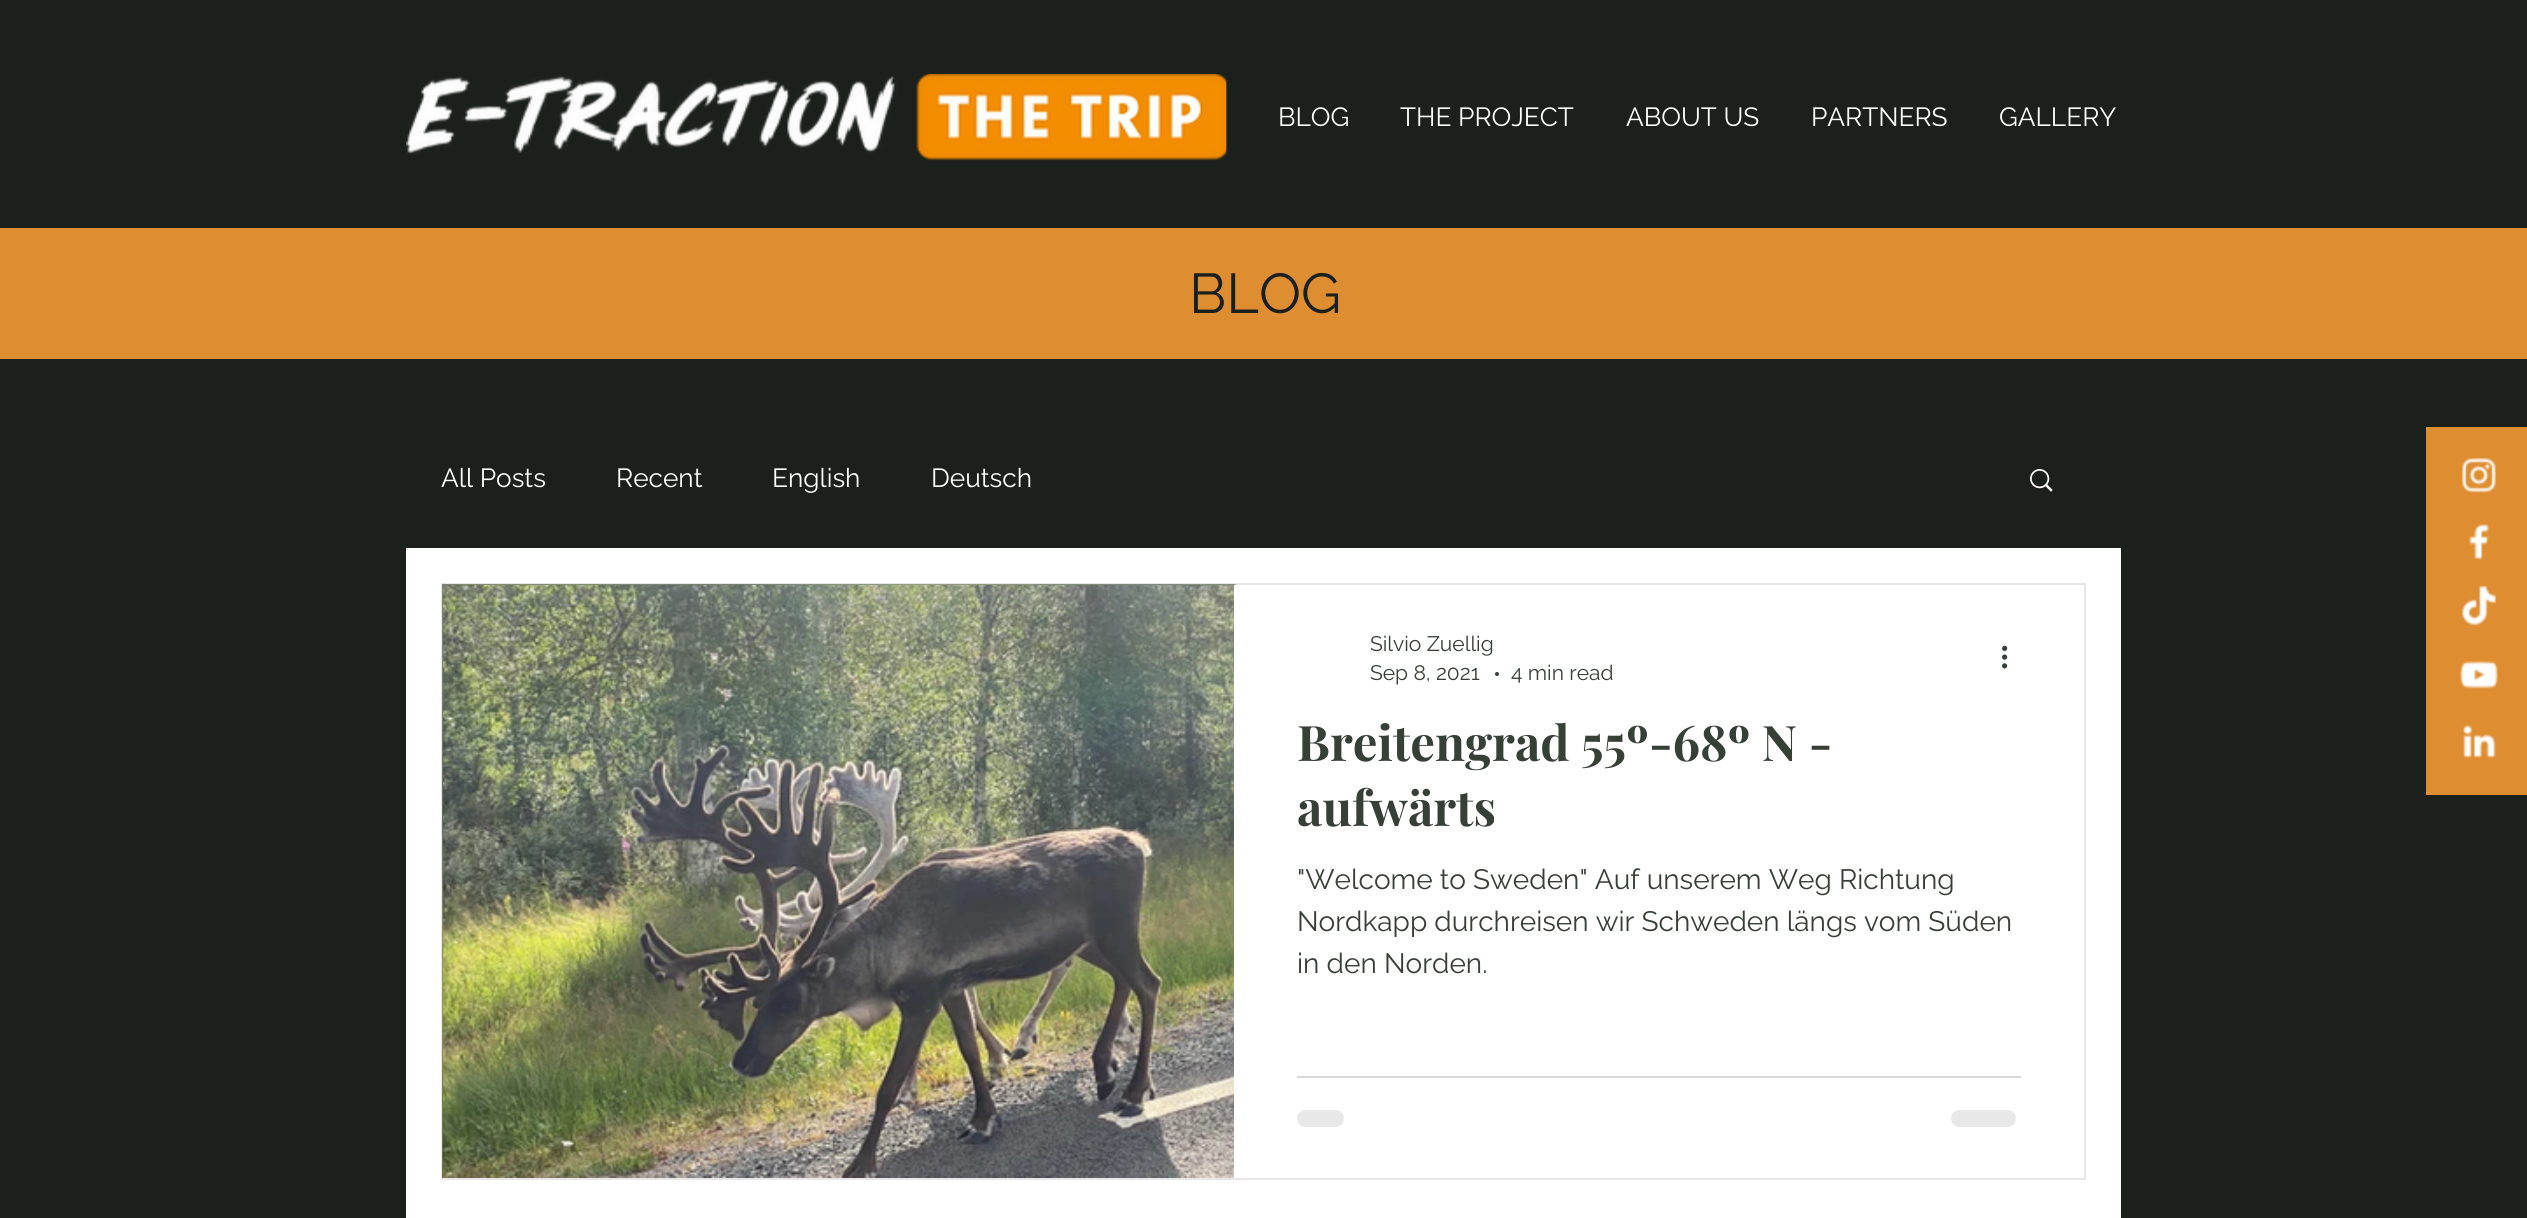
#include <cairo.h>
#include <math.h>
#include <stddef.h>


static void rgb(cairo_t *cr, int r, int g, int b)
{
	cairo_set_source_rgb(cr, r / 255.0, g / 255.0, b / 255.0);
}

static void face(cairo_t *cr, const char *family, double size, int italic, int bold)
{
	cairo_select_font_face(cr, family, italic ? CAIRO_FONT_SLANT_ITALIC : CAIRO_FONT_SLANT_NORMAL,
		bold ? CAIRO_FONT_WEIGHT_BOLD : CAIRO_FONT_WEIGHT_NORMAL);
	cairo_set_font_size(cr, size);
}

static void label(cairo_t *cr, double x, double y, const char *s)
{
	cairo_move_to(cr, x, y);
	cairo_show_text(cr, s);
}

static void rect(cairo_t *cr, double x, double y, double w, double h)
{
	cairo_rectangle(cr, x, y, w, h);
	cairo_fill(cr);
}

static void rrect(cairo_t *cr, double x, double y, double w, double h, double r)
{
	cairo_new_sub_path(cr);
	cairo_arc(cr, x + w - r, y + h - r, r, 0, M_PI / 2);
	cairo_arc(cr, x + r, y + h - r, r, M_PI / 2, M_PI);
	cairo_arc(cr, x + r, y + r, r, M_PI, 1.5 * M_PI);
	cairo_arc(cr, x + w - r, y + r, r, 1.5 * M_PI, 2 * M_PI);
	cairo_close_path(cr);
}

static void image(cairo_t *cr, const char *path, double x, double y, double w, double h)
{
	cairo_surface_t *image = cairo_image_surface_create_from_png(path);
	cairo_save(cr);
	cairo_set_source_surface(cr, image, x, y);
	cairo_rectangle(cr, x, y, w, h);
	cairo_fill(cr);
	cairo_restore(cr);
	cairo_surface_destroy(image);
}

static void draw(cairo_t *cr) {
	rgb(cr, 27, 32, 28);
	cairo_paint(cr);
	image(cr, "image0.png", 406, 74, 821, 87);
	face(cr, "Raleway", 26.25, 0, 0);
	rgb(cr, 255, 255, 255);
	label(cr, 1278, 126, "BLOG");
	label(cr, 1400, 126, "THE PROJECT");
	label(cr, 1626, 126, "ABOUT US");
	label(cr, 1811, 126, "PARTNERS");
	label(cr, 1999, 126, "GALLERY");
	rgb(cr, 222, 141, 49);
	rect(cr, 0, 228, 2527, 131);
	face(cr, "Raleway", 56, 0, 0);
	rgb(cr, 27, 32, 28);
	label(cr, 1189, 313, "BLOG");
	rgb(cr, 255, 255, 255);
	rect(cr, 406, 548, 1715, 670);
	face(cr, "Raleway", 26.25, 0, 0);
	label(cr, 441, 487, "All Posts");
	label(cr, 616, 487, "Recent");
	label(cr, 772, 487, "English");
	label(cr, 931, 487, "Deutsch");
	image(cr, "image1.png", 2030, 469, 23, 23);
	cairo_rectangle(cr, 442, 584, 1643, 595);
	rgb(cr, 232, 230, 230);
	cairo_stroke(cr);
	image(cr, "image2.png", 442, 584, 794, 594);
	image(cr, "image3.png", 443, 585, 791, 593);
	rgb(cr, 255, 255, 255);
	rect(cr, 1234, 585, 2, 593);
	face(cr, "Raleway", 21, 0, 0);
	rgb(cr, 54, 64, 55);
	label(cr, 1370, 651, "Silvio Zuellig");
	label(cr, 1370, 680, "Sep 8, 2021");
	cairo_new_path(cr);
	cairo_arc(cr, 1497, 674, 2, 0, 2 * M_PI);
	cairo_fill(cr);
	label(cr, 1511, 680, "4 min read");
	image(cr, "image4.png", 2002, 645, 6, 24);
	face(cr, "Playfair Display", 49, 0, 1);
	label(cr, 1297, 761, "Breitengrad 55º-68º N -");
	label(cr, 1297, 826, "aufwärts");
	face(cr, "Raleway", 28, 0, 0);
	label(cr, 1297, 889, "\"Welcome to Sweden\" Auf unserem Weg Richtung");
	label(cr, 1297, 931, "Nordkapp durchreisen wir Schweden längs vom Süden");
	label(cr, 1297, 973, "in den Norden.");
	rgb(cr, 215, 217, 215);
	rect(cr, 1297, 1076, 724, 2);
	rgb(cr, 231, 232, 231);
	rrect(cr, 1297, 1110, 47, 17, 8.5);
	cairo_fill(cr);
	rrect(cr, 1951, 1110, 65, 17, 8.5);
	cairo_fill(cr);
	rgb(cr, 222, 141, 49);
	rect(cr, 2426, 427, 101, 368);
	image(cr, "image5.png", 2461, 457, 35, 36);
	image(cr, "image6.png", 2469, 524, 20, 36);
	image(cr, "image7.png", 2461, 586, 35, 40);
	image(cr, "image8.png", 2460, 661, 38, 28);
	image(cr, "image9.png", 2462, 725, 34, 34);
}

int main(void) {
	cairo_surface_t *surface = cairo_image_surface_create(CAIRO_FORMAT_RGB24, 2527, 1218);
	cairo_t *cr = cairo_create(surface);
	cairo_font_options_t *options = cairo_font_options_create();
	cairo_font_options_set_hint_metrics(options, CAIRO_HINT_METRICS_OFF);
	cairo_font_options_set_hint_style(options, CAIRO_HINT_STYLE_NONE);
	cairo_set_font_options(cr, options);
	cairo_set_miter_limit(cr, 4);
	draw(cr);
	cairo_surface_write_to_png(surface, "render.png");
	cairo_font_options_destroy(options);
	cairo_destroy(cr);
	cairo_surface_destroy(surface);
	return 0;
}
